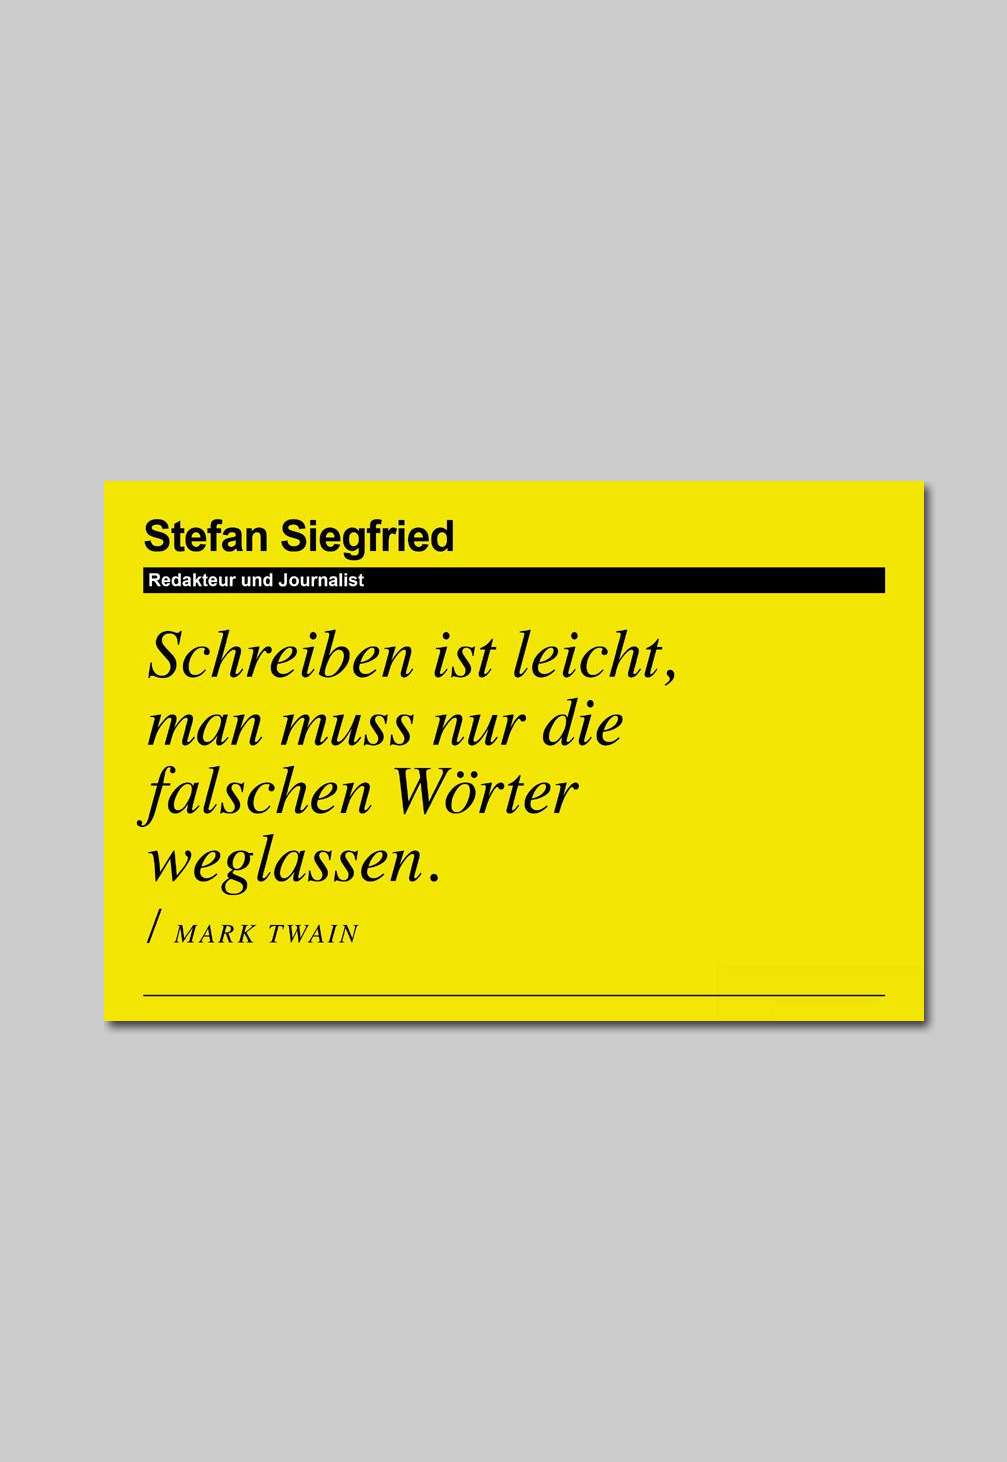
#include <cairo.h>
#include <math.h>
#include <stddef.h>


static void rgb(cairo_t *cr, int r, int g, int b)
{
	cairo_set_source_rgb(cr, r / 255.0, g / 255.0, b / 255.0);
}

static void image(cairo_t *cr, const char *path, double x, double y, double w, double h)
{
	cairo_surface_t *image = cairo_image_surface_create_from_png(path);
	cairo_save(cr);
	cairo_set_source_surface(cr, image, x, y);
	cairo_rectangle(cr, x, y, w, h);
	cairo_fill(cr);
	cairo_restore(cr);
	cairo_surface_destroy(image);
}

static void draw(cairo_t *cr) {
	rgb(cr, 204, 204, 204);
	cairo_paint(cr);
	image(cr, "image0.png", 104, 481, 832, 554);
	image(cr, "image1.png", 104, 481, 820, 540);
}

int main(void) {
	cairo_surface_t *surface = cairo_image_surface_create(CAIRO_FORMAT_RGB24, 1007, 1462);
	cairo_t *cr = cairo_create(surface);
	cairo_font_options_t *options = cairo_font_options_create();
	cairo_font_options_set_hint_metrics(options, CAIRO_HINT_METRICS_OFF);
	cairo_font_options_set_hint_style(options, CAIRO_HINT_STYLE_NONE);
	cairo_set_font_options(cr, options);
	cairo_set_miter_limit(cr, 4);
	draw(cr);
	cairo_surface_write_to_png(surface, "render.png");
	cairo_font_options_destroy(options);
	cairo_destroy(cr);
	cairo_surface_destroy(surface);
	return 0;
}
